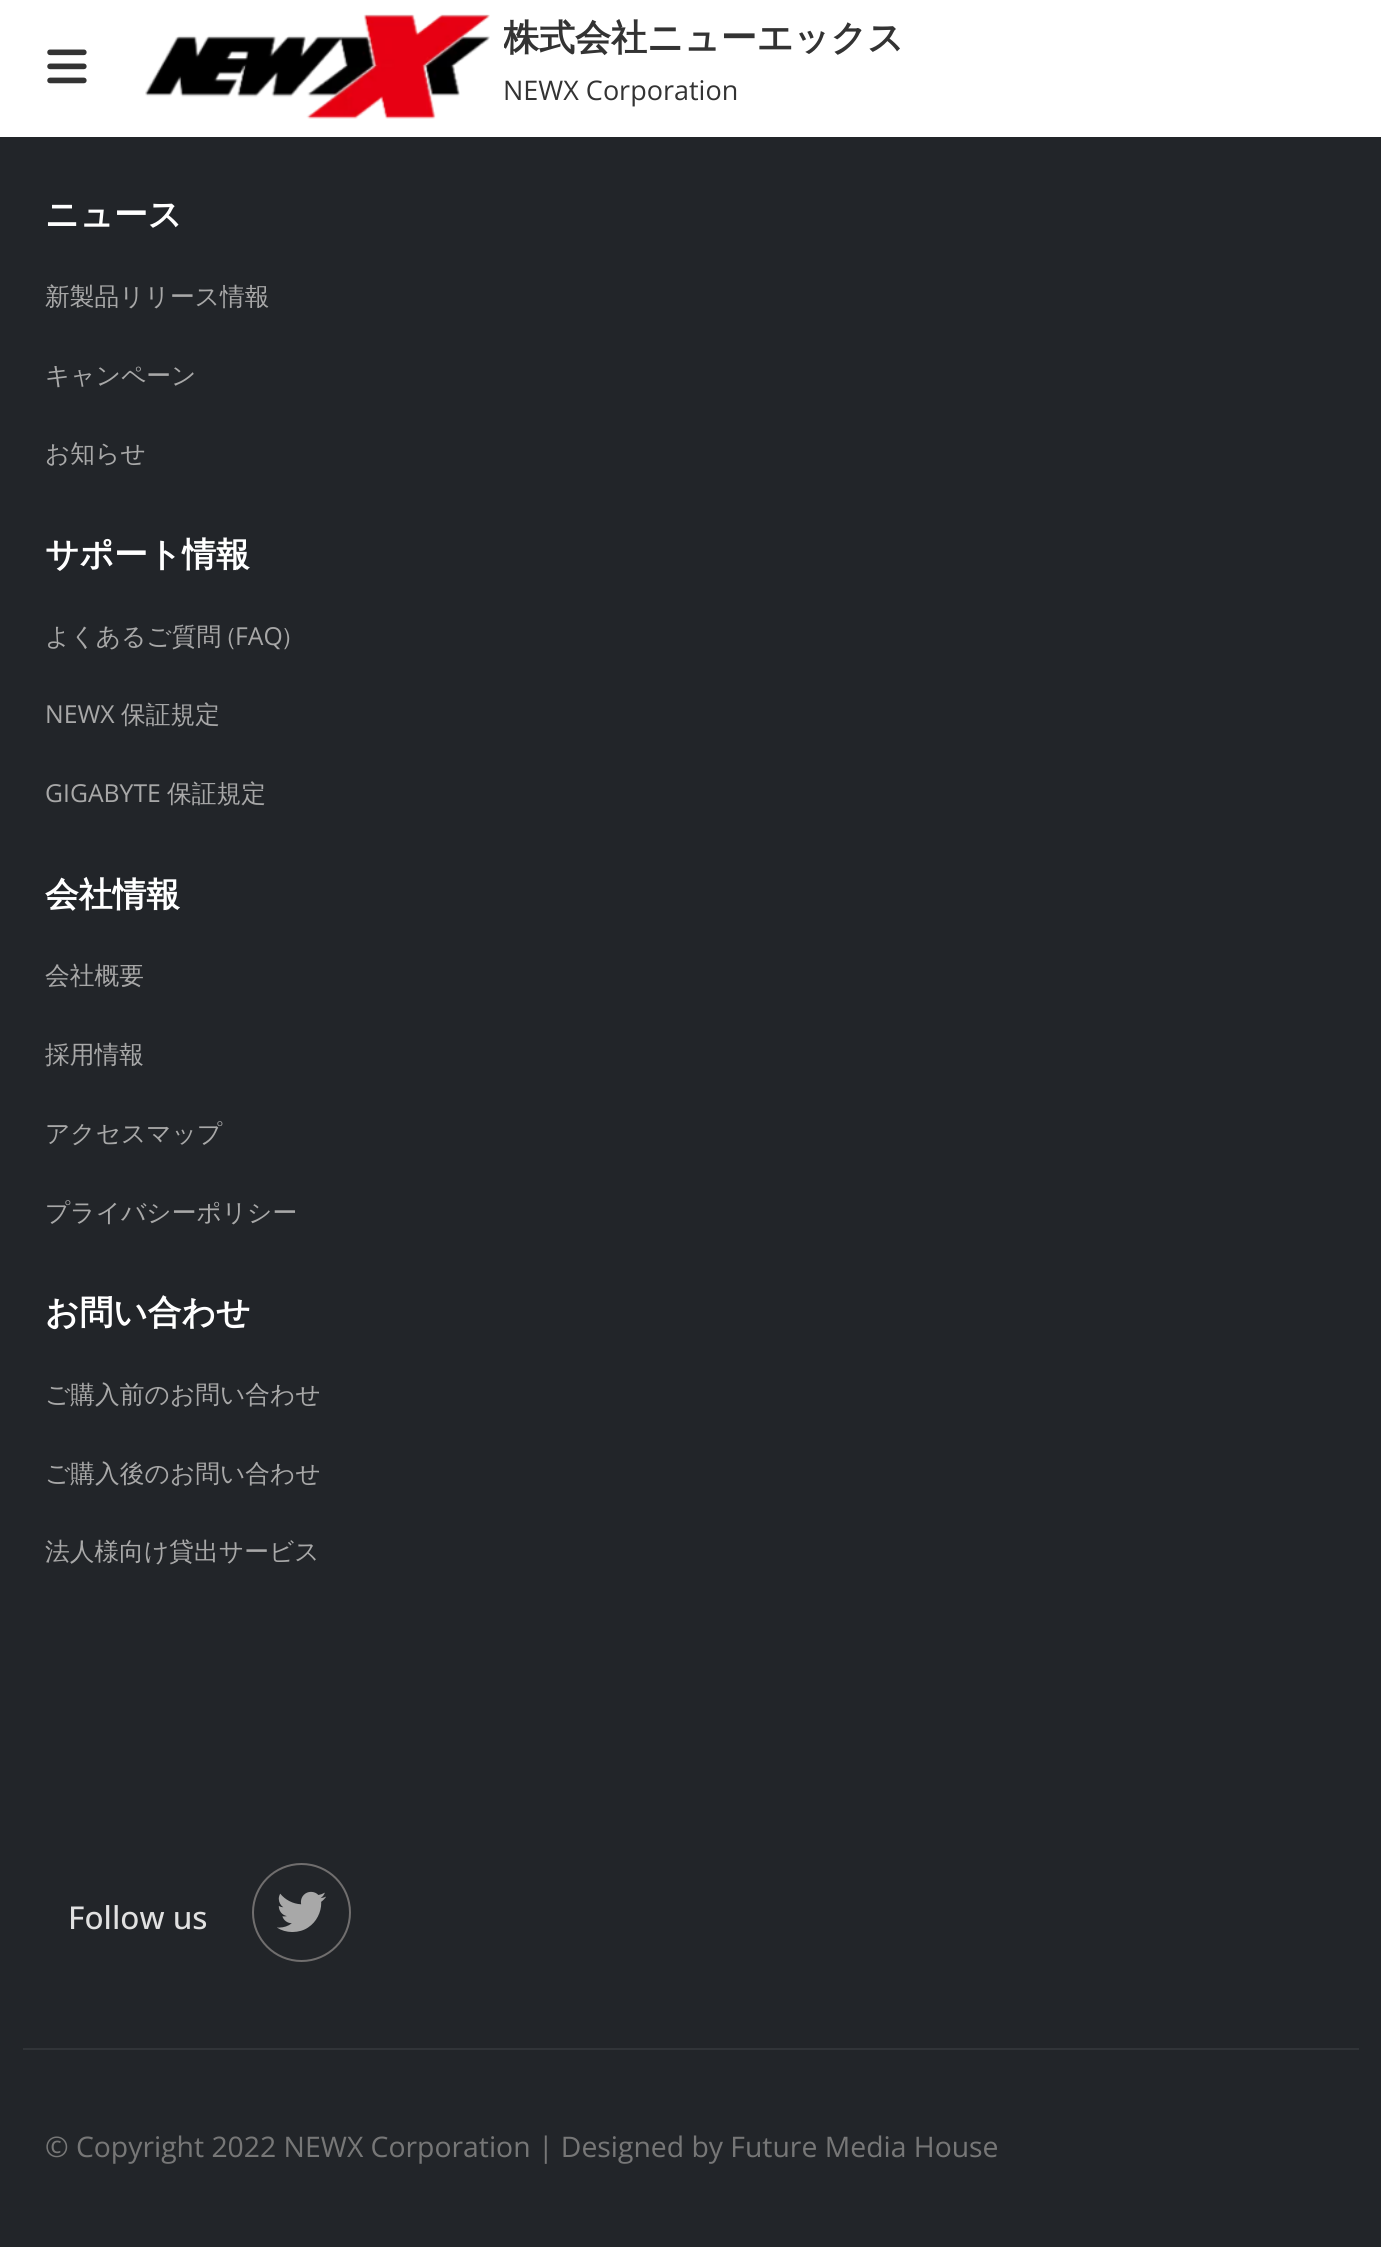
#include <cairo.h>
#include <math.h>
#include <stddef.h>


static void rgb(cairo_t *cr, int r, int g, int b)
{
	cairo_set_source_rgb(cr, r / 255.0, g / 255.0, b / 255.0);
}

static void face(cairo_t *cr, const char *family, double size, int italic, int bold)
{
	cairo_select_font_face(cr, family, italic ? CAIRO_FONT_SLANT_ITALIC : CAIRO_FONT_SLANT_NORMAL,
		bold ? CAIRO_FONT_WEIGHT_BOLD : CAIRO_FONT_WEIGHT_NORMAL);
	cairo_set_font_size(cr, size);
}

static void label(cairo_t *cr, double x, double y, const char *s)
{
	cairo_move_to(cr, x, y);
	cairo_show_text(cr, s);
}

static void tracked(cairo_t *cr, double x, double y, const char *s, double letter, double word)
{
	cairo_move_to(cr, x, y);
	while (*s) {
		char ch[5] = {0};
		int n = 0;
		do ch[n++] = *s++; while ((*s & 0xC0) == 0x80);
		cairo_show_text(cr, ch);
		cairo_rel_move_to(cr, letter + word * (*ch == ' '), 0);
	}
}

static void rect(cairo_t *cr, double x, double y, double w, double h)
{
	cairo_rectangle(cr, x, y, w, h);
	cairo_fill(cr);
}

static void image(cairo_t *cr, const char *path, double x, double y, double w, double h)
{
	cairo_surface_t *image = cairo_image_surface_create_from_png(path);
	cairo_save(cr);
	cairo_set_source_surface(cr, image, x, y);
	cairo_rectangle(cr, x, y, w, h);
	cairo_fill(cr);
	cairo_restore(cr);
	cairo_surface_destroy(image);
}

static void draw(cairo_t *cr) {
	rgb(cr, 34, 37, 41);
	cairo_paint(cr);
	rgb(cr, 255, 255, 255);
	rect(cr, 0, 0, 1381, 137);
	image(cr, "image0.png", 47, 49, 40, 35);
	image(cr, "image1.png", 145, 14, 345, 105);
	cairo_save(cr);
	cairo_rectangle(cr, 504, 0, 401, 137);
	cairo_clip(cr);
	face(cr, "WenQuanYi Zen Hei", 36, 0, 1);
	rgb(cr, 51, 51, 51);
	label(cr, 503, 50, "株式会社ニューエックス");
	cairo_restore(cr);
	face(cr, "Open Sans", 27, 0, 0);
	rgb(cr, 51, 51, 51);
	label(cr, 503, 100, "NEWX Corporation");
	face(cr, "WenQuanYi Zen Hei", 33.75, 0, 1);
	rgb(cr, 255, 255, 255);
	label(cr, 45, 226, "ニュース");
	face(cr, "WenQuanYi Zen Hei Medium", 24.75, 0, 0);
	rgb(cr, 168, 168, 168);
	label(cr, 45, 305, "新製品リリース情報");
	label(cr, 45, 384, "キャンペーン");
	label(cr, 45, 462, "お知らせ");
	face(cr, "WenQuanYi Zen Hei", 33.75, 0, 1);
	rgb(cr, 255, 255, 255);
	label(cr, 45, 566, "サポート情報");
	face(cr, "WenQuanYi Zen Hei Medium", 24.75, 0, 0);
	rgb(cr, 168, 168, 168);
	tracked(cr, 45, 645, "よくあるご質問 (", 0, -1);
	face(cr, "Open Sans", 24.75, 0, 0);
	label(cr, 235, 645, "FAQ");
	face(cr, "WenQuanYi Zen Hei Medium", 24.75, 0, 0);
	label(cr, 283, 645, ")");
	face(cr, "Open Sans", 24.75, 0, 0);
	label(cr, 45, 723, "NEWX");
	face(cr, "WenQuanYi Zen Hei Medium", 24.75, 0, 0);
	label(cr, 121, 723, "保証規定");
	face(cr, "Open Sans", 24.75, 0, 0);
	label(cr, 45, 802, "GIGABYTE");
	face(cr, "WenQuanYi Zen Hei Medium", 24.75, 0, 0);
	label(cr, 167, 802, "保証規定");
	face(cr, "WenQuanYi Zen Hei", 33.75, 0, 1);
	rgb(cr, 255, 255, 255);
	label(cr, 45, 906, "会社情報");
	face(cr, "WenQuanYi Zen Hei Medium", 24.75, 0, 0);
	rgb(cr, 168, 168, 168);
	label(cr, 45, 984, "会社概要");
	label(cr, 45, 1063, "採用情報");
	label(cr, 45, 1142, "アクセスマップ");
	label(cr, 45, 1221, "プライバシーポリシー");
	face(cr, "WenQuanYi Zen Hei", 33.75, 0, 1);
	rgb(cr, 255, 255, 255);
	label(cr, 45, 1324, "お問い合わせ");
	face(cr, "WenQuanYi Zen Hei Medium", 24.75, 0, 0);
	rgb(cr, 168, 168, 168);
	label(cr, 45, 1403, "ご購入前のお問い合わせ");
	label(cr, 45, 1482, "ご購入後のお問い合わせ");
	label(cr, 45, 1560, "法人様向け貸出サービス");
	face(cr, "Open Sans Medium", 31.5, 0, 0);
	rgb(cr, 225, 225, 225);
	label(cr, 68, 1929, "Follow us");
	cairo_new_path(cr);
	cairo_arc(cr, 301.5, 1912.5, 48.5, 0, 2 * M_PI);
	rgb(cr, 112, 110, 110);
	cairo_stroke(cr);
	image(cr, "image2.png", 277, 1891, 49, 41);
	rgb(cr, 49, 52, 56);
	rect(cr, 23, 2048, 1336, 2);
	face(cr, "Open Sans", 28.35, 0, 0);
	rgb(cr, 119, 119, 119);
	label(cr, 45, 2157, "© Copyright 2022 NEWX Corporation | Designed by Future Media House");
}

int main(void) {
	cairo_surface_t *surface = cairo_image_surface_create(CAIRO_FORMAT_RGB24, 1381, 2247);
	cairo_t *cr = cairo_create(surface);
	cairo_font_options_t *options = cairo_font_options_create();
	cairo_font_options_set_hint_metrics(options, CAIRO_HINT_METRICS_OFF);
	cairo_font_options_set_hint_style(options, CAIRO_HINT_STYLE_NONE);
	cairo_set_font_options(cr, options);
	cairo_set_miter_limit(cr, 4);
	draw(cr);
	cairo_surface_write_to_png(surface, "render.png");
	cairo_font_options_destroy(options);
	cairo_destroy(cr);
	cairo_surface_destroy(surface);
	return 0;
}
